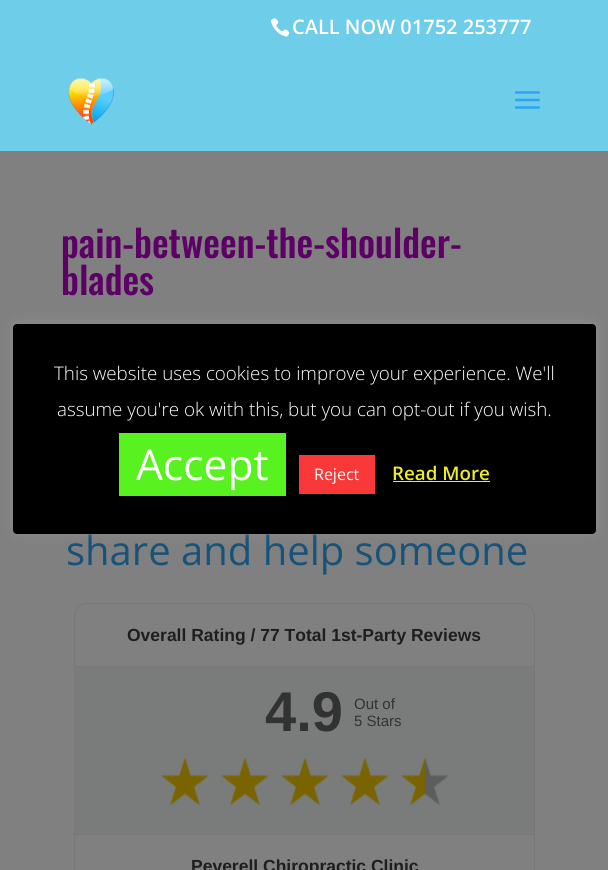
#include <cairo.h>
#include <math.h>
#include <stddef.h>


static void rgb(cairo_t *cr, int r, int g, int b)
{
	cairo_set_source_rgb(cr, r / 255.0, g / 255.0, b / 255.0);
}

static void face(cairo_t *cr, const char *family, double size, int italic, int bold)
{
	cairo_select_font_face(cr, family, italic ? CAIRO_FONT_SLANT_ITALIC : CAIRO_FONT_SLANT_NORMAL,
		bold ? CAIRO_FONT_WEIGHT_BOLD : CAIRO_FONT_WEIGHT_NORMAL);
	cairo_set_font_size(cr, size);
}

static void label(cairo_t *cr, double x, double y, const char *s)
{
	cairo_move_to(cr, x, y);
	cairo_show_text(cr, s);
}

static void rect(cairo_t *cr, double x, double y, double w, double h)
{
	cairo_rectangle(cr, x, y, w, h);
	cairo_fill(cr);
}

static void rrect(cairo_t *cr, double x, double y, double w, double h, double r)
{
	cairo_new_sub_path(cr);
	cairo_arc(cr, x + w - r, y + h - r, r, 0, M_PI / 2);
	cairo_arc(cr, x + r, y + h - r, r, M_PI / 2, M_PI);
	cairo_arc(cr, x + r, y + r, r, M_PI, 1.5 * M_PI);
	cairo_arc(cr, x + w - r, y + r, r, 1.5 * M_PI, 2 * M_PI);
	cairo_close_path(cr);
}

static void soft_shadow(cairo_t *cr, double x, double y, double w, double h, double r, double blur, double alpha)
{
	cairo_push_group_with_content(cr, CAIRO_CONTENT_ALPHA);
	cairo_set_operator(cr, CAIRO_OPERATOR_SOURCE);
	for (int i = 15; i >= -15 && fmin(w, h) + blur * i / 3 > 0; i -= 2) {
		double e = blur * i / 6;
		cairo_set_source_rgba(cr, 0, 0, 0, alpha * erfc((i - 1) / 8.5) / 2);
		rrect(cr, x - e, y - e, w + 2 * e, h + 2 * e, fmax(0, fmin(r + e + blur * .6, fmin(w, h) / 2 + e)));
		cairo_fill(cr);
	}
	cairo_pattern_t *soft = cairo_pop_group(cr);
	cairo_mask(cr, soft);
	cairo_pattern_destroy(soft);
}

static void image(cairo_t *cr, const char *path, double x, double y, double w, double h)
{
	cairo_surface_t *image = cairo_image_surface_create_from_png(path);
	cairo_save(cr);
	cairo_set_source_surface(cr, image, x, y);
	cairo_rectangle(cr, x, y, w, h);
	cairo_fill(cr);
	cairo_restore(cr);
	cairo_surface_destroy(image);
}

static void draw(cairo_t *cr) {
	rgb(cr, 128, 128, 128);
	cairo_paint(cr);
	rgb(cr, 110, 205, 232);
	rect(cr, 0, 0, 608, 151);
	image(cr, "image0.png", 68, 77, 46, 48);
	image(cr, "image1.png", 515, 91, 25, 18);
	image(cr, "image2.png", 270, 18, 20, 19);
	face(cr, "Open Sans SemiBold", 20, 0, 0);
	rgb(cr, 255, 255, 255);
	label(cr, 292, 34, "CALL NOW 01752 253777");
	face(cr, "Oswald Medium", 37.5, 0, 0);
	rgb(cr, 93, 0, 101);
	label(cr, 61, 258, "pain-between-the-shoulder-");
	label(cr, 61, 295, "blades");
	face(cr, "Open Sans", 40, 0, 0);
	rgb(cr, 23, 82, 121);
	label(cr, 66, 565, "share and help someone");
	rrect(cr, 74.5, 603.5, 460, 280, 12.5);
	rgb(cr, 119, 119, 119);
	cairo_set_line_width(cr, 1);
	cairo_stroke(cr);
	face(cr, "Liberation Sans", 17.5, 0, 1);
	rgb(cr, 30, 30, 30);
	label(cr, 127, 641, "Overall Rating / 77 Total 1st-Party Reviews");
	rgb(cr, 122, 124, 124);
	rect(cr, 75, 667, 459, 167);
	rgb(cr, 119, 119, 119);
	rect(cr, 75, 666, 459, 1);
	rect(cr, 75, 834, 459, 1);
	face(cr, "Liberation Sans", 56, 0, 1);
	rgb(cr, 50, 50, 50);
	label(cr, 265, 731, "4.9");
	face(cr, "Liberation Sans", 15, 0, 0);
	label(cr, 354, 709, "Out of");
	label(cr, 354, 726, "5 Stars");
	image(cr, "image3.png", 161, 757, 48, 48);
	image(cr, "image3.png", 221, 757, 48, 48);
	image(cr, "image3.png", 281, 757, 48, 48);
	image(cr, "image3.png", 341, 757, 48, 48);
	image(cr, "image4.png", 401, 757, 48, 48);
	face(cr, "Liberation Sans", 17.5, 0, 1);
	rgb(cr, 30, 30, 30);
	label(cr, 191, 872, "Peverell Chiropractic Clinic");
	rgb(cr, 172, 171, 171);
	soft_shadow(cr, 13, 323, 583, 210, 4, 6, 0.3);
	rgb(cr, 0, 0, 0);
	rrect(cr, 13, 324, 583, 210, 4);
	cairo_fill(cr);
	face(cr, "Open Sans Light", 18.75, 0, 0);
	rgb(cr, 255, 255, 255);
	label(cr, 54, 380, "This website uses cookies to improve your experience. We'll");
	label(cr, 57, 416, "assume you're ok with this, but you can opt-out if you wish.");
	rgb(cr, 87, 242, 31);
	rect(cr, 119, 433, 167, 63);
	face(cr, "Open Sans", 42.5, 0, 0);
	rgb(cr, 255, 255, 255);
	label(cr, 136, 480, "Accept");
	rgb(cr, 249, 57, 57);
	rect(cr, 299, 455, 76, 39);
	face(cr, "Open Sans", 16, 0, 0);
	rgb(cr, 255, 255, 255);
	label(cr, 314, 480, "Reject");
	face(cr, "Open Sans SemiBold", 18.75, 0, 0);
	rgb(cr, 238, 238, 34);
	label(cr, 392, 480, "Read More");
	rect(cr, 393, 481, 97, 1);
}

int main(void) {
	cairo_surface_t *surface = cairo_image_surface_create(CAIRO_FORMAT_RGB24, 608, 870);
	cairo_t *cr = cairo_create(surface);
	cairo_font_options_t *options = cairo_font_options_create();
	cairo_font_options_set_hint_metrics(options, CAIRO_HINT_METRICS_OFF);
	cairo_font_options_set_hint_style(options, CAIRO_HINT_STYLE_NONE);
	cairo_set_font_options(cr, options);
	cairo_set_miter_limit(cr, 4);
	draw(cr);
	cairo_surface_write_to_png(surface, "render.png");
	cairo_font_options_destroy(options);
	cairo_destroy(cr);
	cairo_surface_destroy(surface);
	return 0;
}
